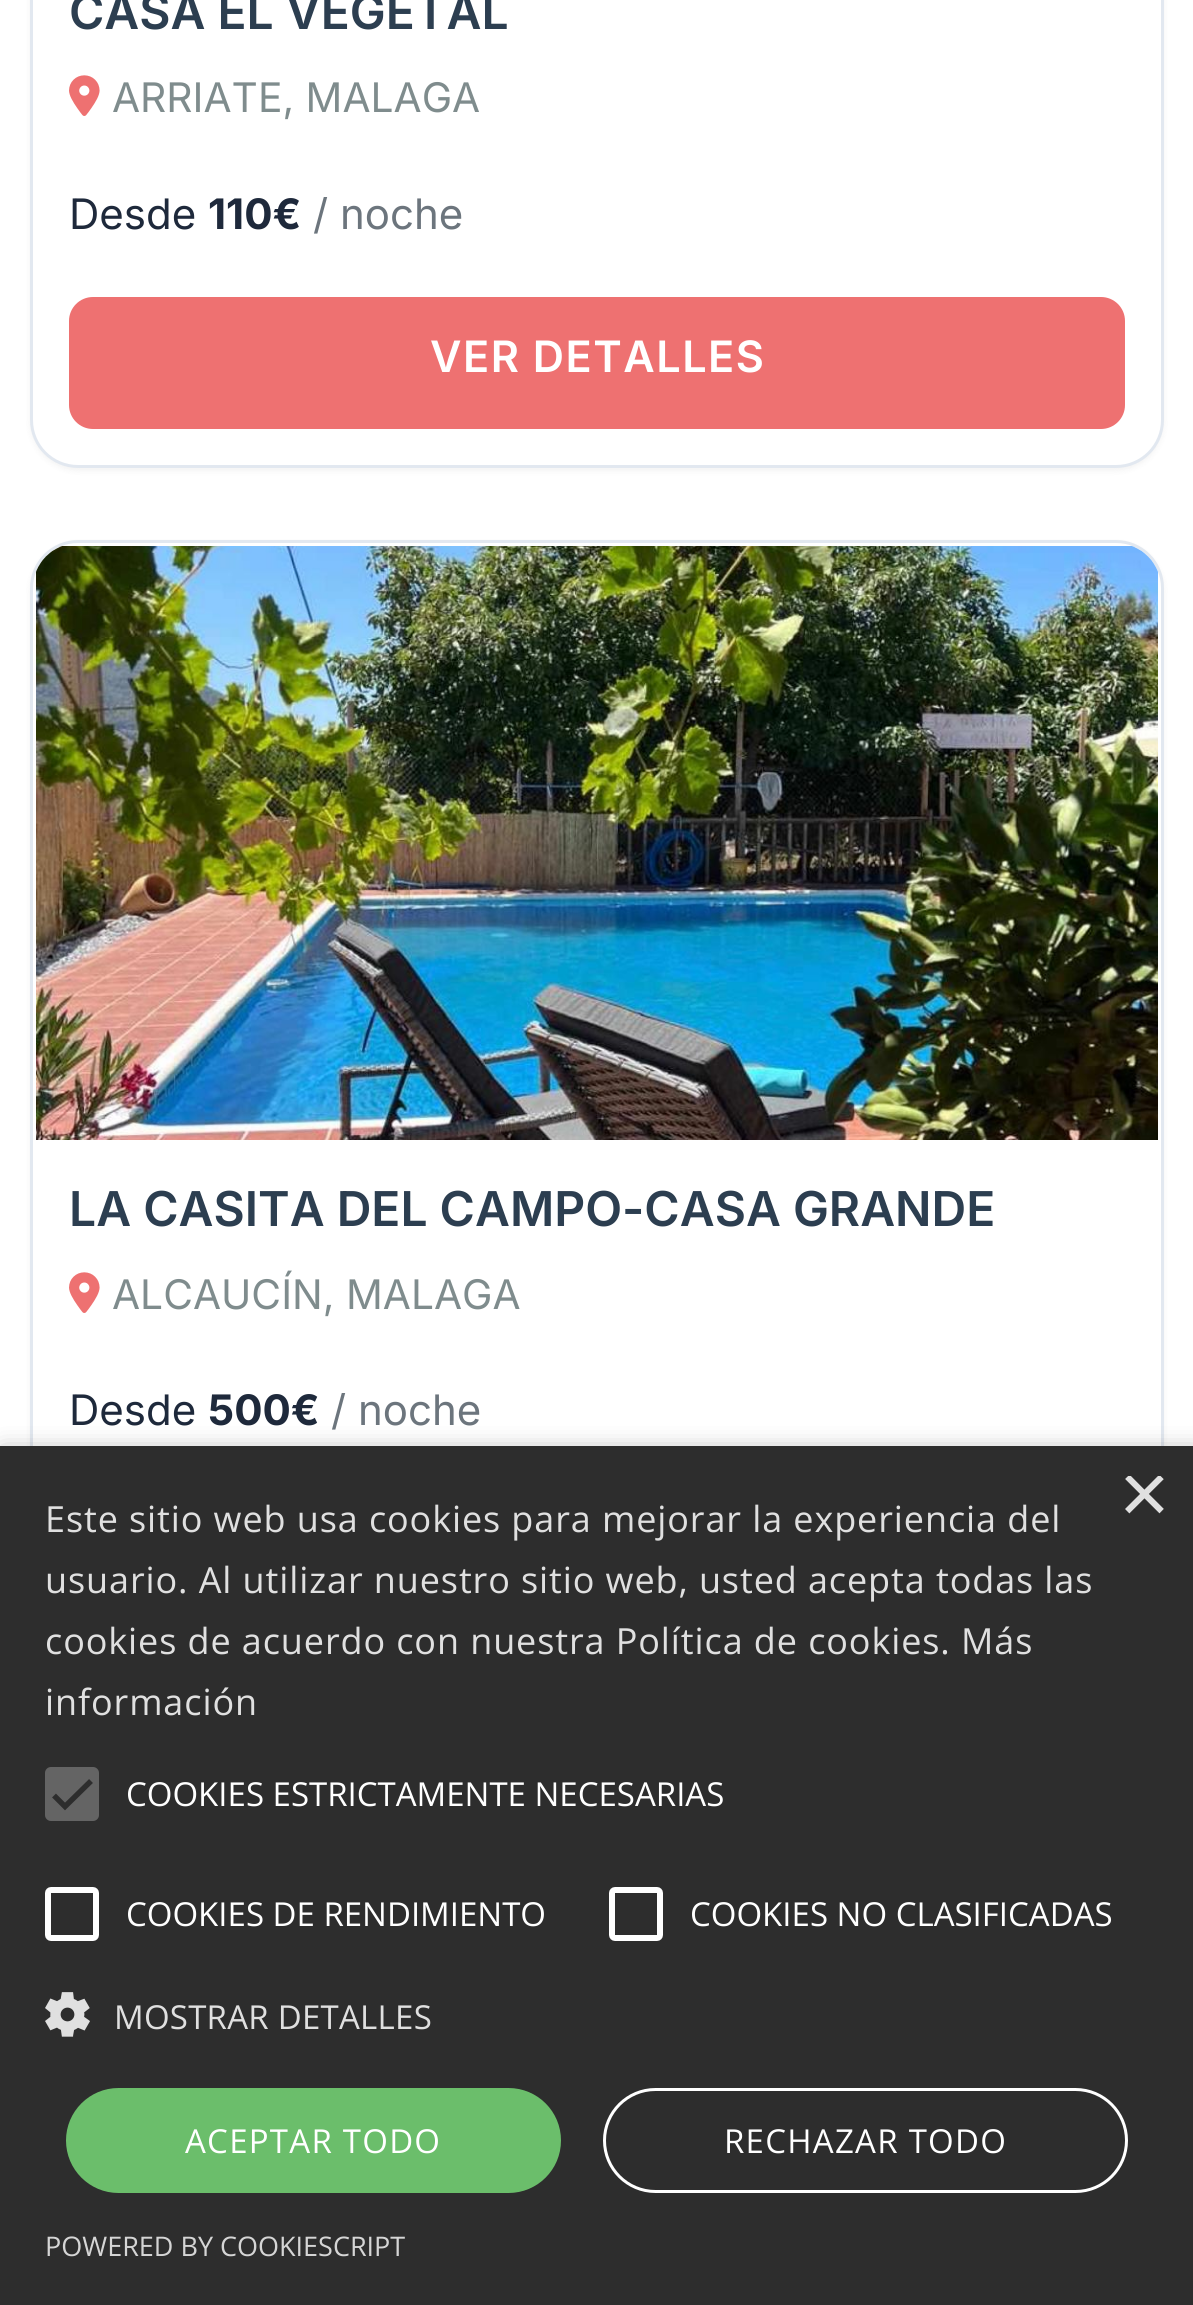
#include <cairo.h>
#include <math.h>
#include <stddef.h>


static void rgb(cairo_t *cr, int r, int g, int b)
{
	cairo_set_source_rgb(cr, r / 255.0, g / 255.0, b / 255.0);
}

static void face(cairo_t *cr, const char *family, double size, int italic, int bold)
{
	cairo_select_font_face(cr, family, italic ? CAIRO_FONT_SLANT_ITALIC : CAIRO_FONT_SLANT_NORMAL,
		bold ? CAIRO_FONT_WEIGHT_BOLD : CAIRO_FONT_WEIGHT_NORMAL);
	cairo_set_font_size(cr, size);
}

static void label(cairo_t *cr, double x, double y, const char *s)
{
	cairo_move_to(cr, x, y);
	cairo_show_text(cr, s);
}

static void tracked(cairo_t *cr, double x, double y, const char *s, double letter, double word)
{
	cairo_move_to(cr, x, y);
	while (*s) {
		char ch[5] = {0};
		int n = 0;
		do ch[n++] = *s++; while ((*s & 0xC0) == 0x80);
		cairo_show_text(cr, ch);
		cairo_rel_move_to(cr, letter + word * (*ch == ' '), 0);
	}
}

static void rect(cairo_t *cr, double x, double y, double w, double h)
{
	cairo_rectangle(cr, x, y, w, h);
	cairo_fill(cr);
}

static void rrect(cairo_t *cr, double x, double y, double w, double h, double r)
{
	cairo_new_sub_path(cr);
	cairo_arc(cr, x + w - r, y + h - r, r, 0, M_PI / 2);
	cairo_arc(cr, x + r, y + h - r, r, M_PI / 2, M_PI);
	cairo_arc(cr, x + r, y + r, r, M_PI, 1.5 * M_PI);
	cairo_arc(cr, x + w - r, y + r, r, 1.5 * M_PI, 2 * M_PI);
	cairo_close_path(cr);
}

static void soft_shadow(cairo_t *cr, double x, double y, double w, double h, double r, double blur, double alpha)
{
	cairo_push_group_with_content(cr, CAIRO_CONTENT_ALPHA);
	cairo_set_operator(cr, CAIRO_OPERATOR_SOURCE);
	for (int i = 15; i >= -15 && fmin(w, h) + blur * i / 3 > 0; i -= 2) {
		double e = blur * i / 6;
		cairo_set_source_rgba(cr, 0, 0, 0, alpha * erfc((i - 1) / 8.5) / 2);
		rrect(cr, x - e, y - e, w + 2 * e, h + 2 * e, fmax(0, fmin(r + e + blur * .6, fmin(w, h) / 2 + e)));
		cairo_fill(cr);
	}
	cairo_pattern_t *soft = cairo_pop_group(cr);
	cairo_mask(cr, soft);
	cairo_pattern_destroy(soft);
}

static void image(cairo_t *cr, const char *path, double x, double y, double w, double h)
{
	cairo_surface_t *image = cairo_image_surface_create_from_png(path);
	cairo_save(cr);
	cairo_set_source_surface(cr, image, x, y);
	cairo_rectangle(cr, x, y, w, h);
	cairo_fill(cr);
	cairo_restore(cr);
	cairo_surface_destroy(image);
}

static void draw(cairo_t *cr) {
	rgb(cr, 255, 255, 255);
	cairo_paint(cr);
	rgb(cr, 0, 0, 0);
	soft_shadow(cr, 30, -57, 1134, 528, 48, 3, 0.05);
	rgb(cr, 255, 255, 255);
	rrect(cr, 31.5, -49.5, 1131, 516, 46.5);
	cairo_fill_preserve(cr);
	rgb(cr, 226, 232, 240);
	cairo_set_line_width(cr, 3);
	cairo_stroke(cr);
	face(cr, "Inter SemiBold", 48, 0, 0);
	rgb(cr, 44, 62, 80);
	label(cr, 69, 29, "CASA EL VEGETAL");
	image(cr, "image0.png", 69, 75, 31, 41);
	face(cr, "Inter", 40.75, 0, 0);
	rgb(cr, 127, 140, 141);
	label(cr, 112, 112, "ARRIATE, MALAGA");
	face(cr, "Inter", 42, 0, 0);
	rgb(cr, 30, 41, 59);
	label(cr, 69, 229, "Desde");
	face(cr, "Inter", 42, 0, 1);
	label(cr, 208, 229, "110€");
	face(cr, "Inter", 42, 0, 0);
	rgb(cr, 108, 117, 125);
	label(cr, 313, 229, "/ noche");
	rgb(cr, 238, 113, 113);
	rrect(cr, 69, 297, 1056, 132, 24);
	cairo_fill(cr);
	face(cr, "Inter SemiBold", 43.25, 0, 0);
	rgb(cr, 255, 255, 255);
	tracked(cr, 430, 372, "VER DETALLES", 1.5, 0);
	rgb(cr, 0, 0, 0);
	soft_shadow(cr, 30, 543, 1134, 1125, 48, 3, 0.05);
	rgb(cr, 255, 255, 255);
	rrect(cr, 31.5, 541.5, 1131, 1122, 46.5);
	cairo_fill_preserve(cr);
	rgb(cr, 226, 232, 240);
	cairo_stroke(cr);
	image(cr, "image1.png", 36, 546, 1122, 594);
	face(cr, "Inter SemiBold", 48, 0, 0);
	rgb(cr, 44, 62, 80);
	label(cr, 69, 1226, "LA CASITA DEL CAMPO-CASA GRANDE");
	image(cr, "image0.png", 69, 1272, 31, 41);
	face(cr, "Inter", 40.75, 0, 0);
	rgb(cr, 127, 140, 141);
	label(cr, 112, 1309, "ALCAUCÍN, MALAGA");
	face(cr, "Inter", 42, 0, 0);
	rgb(cr, 30, 41, 59);
	label(cr, 69, 1425, "Desde");
	face(cr, "Inter", 42, 0, 1);
	label(cr, 208, 1425, "500€");
	face(cr, "Inter", 42, 0, 0);
	rgb(cr, 108, 117, 125);
	label(cr, 331, 1425, "/ noche");
	rgb(cr, 0, 0, 0);
	soft_shadow(cr, 3, 1452, 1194, 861, 0, 12, 0.35);
	rgb(cr, 45, 45, 45);
	rect(cr, 0, 1446, 1193, 859);
	cairo_save(cr);
	cairo_rectangle(cr, 1119, 1476, 45, 45);
	cairo_clip(cr);
	face(cr, "Liberation Sans", 87, 0, 0);
	rgb(cr, 224, 224, 224);
	label(cr, 1119, 1523, "×");
	cairo_restore(cr);
	face(cr, "Open Sans", 36, 0, 0);
	rgb(cr, 224, 224, 224);
	tracked(cr, 45, 1532, "Este sitio web usa cookies para mejorar la experiencia del", 0.9, 0);
	tracked(cr, 45, 1593, "usuario. Al utilizar nuestro sitio web, usted acepta todas las", 0.9, 0);
	tracked(cr, 45, 1654, "cookies de acuerdo con nuestra Política de cookies. Más", 0.9, 0);
	tracked(cr, 45, 1715, "información", 0.9, 0);
	rgb(cr, 100, 100, 100);
	rrect(cr, 45, 1767, 54, 54, 6);
	cairo_fill(cr);
	cairo_new_path(cr);
	cairo_move_to(cr, 54, 1795.5);
	cairo_line_to(cr, 65, 1806.5);
	cairo_line_to(cr, 91, 1781);
	rgb(cr, 45, 45, 45);
	cairo_set_line_width(cr, 5.5);
	cairo_stroke(cr);
	face(cr, "Open Sans", 33, 0, 0);
	rgb(cr, 255, 255, 255);
	label(cr, 126, 1806, "COOKIES ESTRICTAMENTE NECESARIAS");
	rrect(cr, 48, 1890, 48, 48, 3);
	cairo_set_line_width(cr, 6);
	cairo_stroke(cr);
	label(cr, 126, 1926, "COOKIES DE RENDIMIENTO");
	rrect(cr, 612, 1890, 48, 48, 3);
	cairo_stroke(cr);
	label(cr, 690, 1926, "COOKIES NO CLASIFICADAS");
	image(cr, "image2.png", 45, 1992, 45, 45);
	rgb(cr, 224, 224, 224);
	tracked(cr, 114, 2029, "MOSTRAR DETALLES", 0.25, 0);
	rgb(cr, 107, 190, 107);
	rrect(cr, 66, 2088, 495, 105, 52.5);
	cairo_fill(cr);
	rgb(cr, 255, 255, 255);
	tracked(cr, 185, 2153, "ACEPTAR TODO", 1.25, 0);
	rrect(cr, 604.5, 2089.5, 522, 102, 51);
	cairo_set_line_width(cr, 3);
	cairo_stroke(cr);
	tracked(cr, 724, 2153, "RECHAZAR TODO", 1.25, 0);
	face(cr, "Open Sans", 27, 0, 0);
	rgb(cr, 213, 213, 213);
	label(cr, 45, 2256, "POWERED BY COOKIESCRIPT");
}

int main(void) {
	cairo_surface_t *surface = cairo_image_surface_create(CAIRO_FORMAT_RGB24, 1193, 2305);
	cairo_t *cr = cairo_create(surface);
	cairo_font_options_t *options = cairo_font_options_create();
	cairo_font_options_set_hint_metrics(options, CAIRO_HINT_METRICS_OFF);
	cairo_font_options_set_hint_style(options, CAIRO_HINT_STYLE_NONE);
	cairo_set_font_options(cr, options);
	cairo_set_miter_limit(cr, 4);
	draw(cr);
	cairo_surface_write_to_png(surface, "render.png");
	cairo_font_options_destroy(options);
	cairo_destroy(cr);
	cairo_surface_destroy(surface);
	return 0;
}
